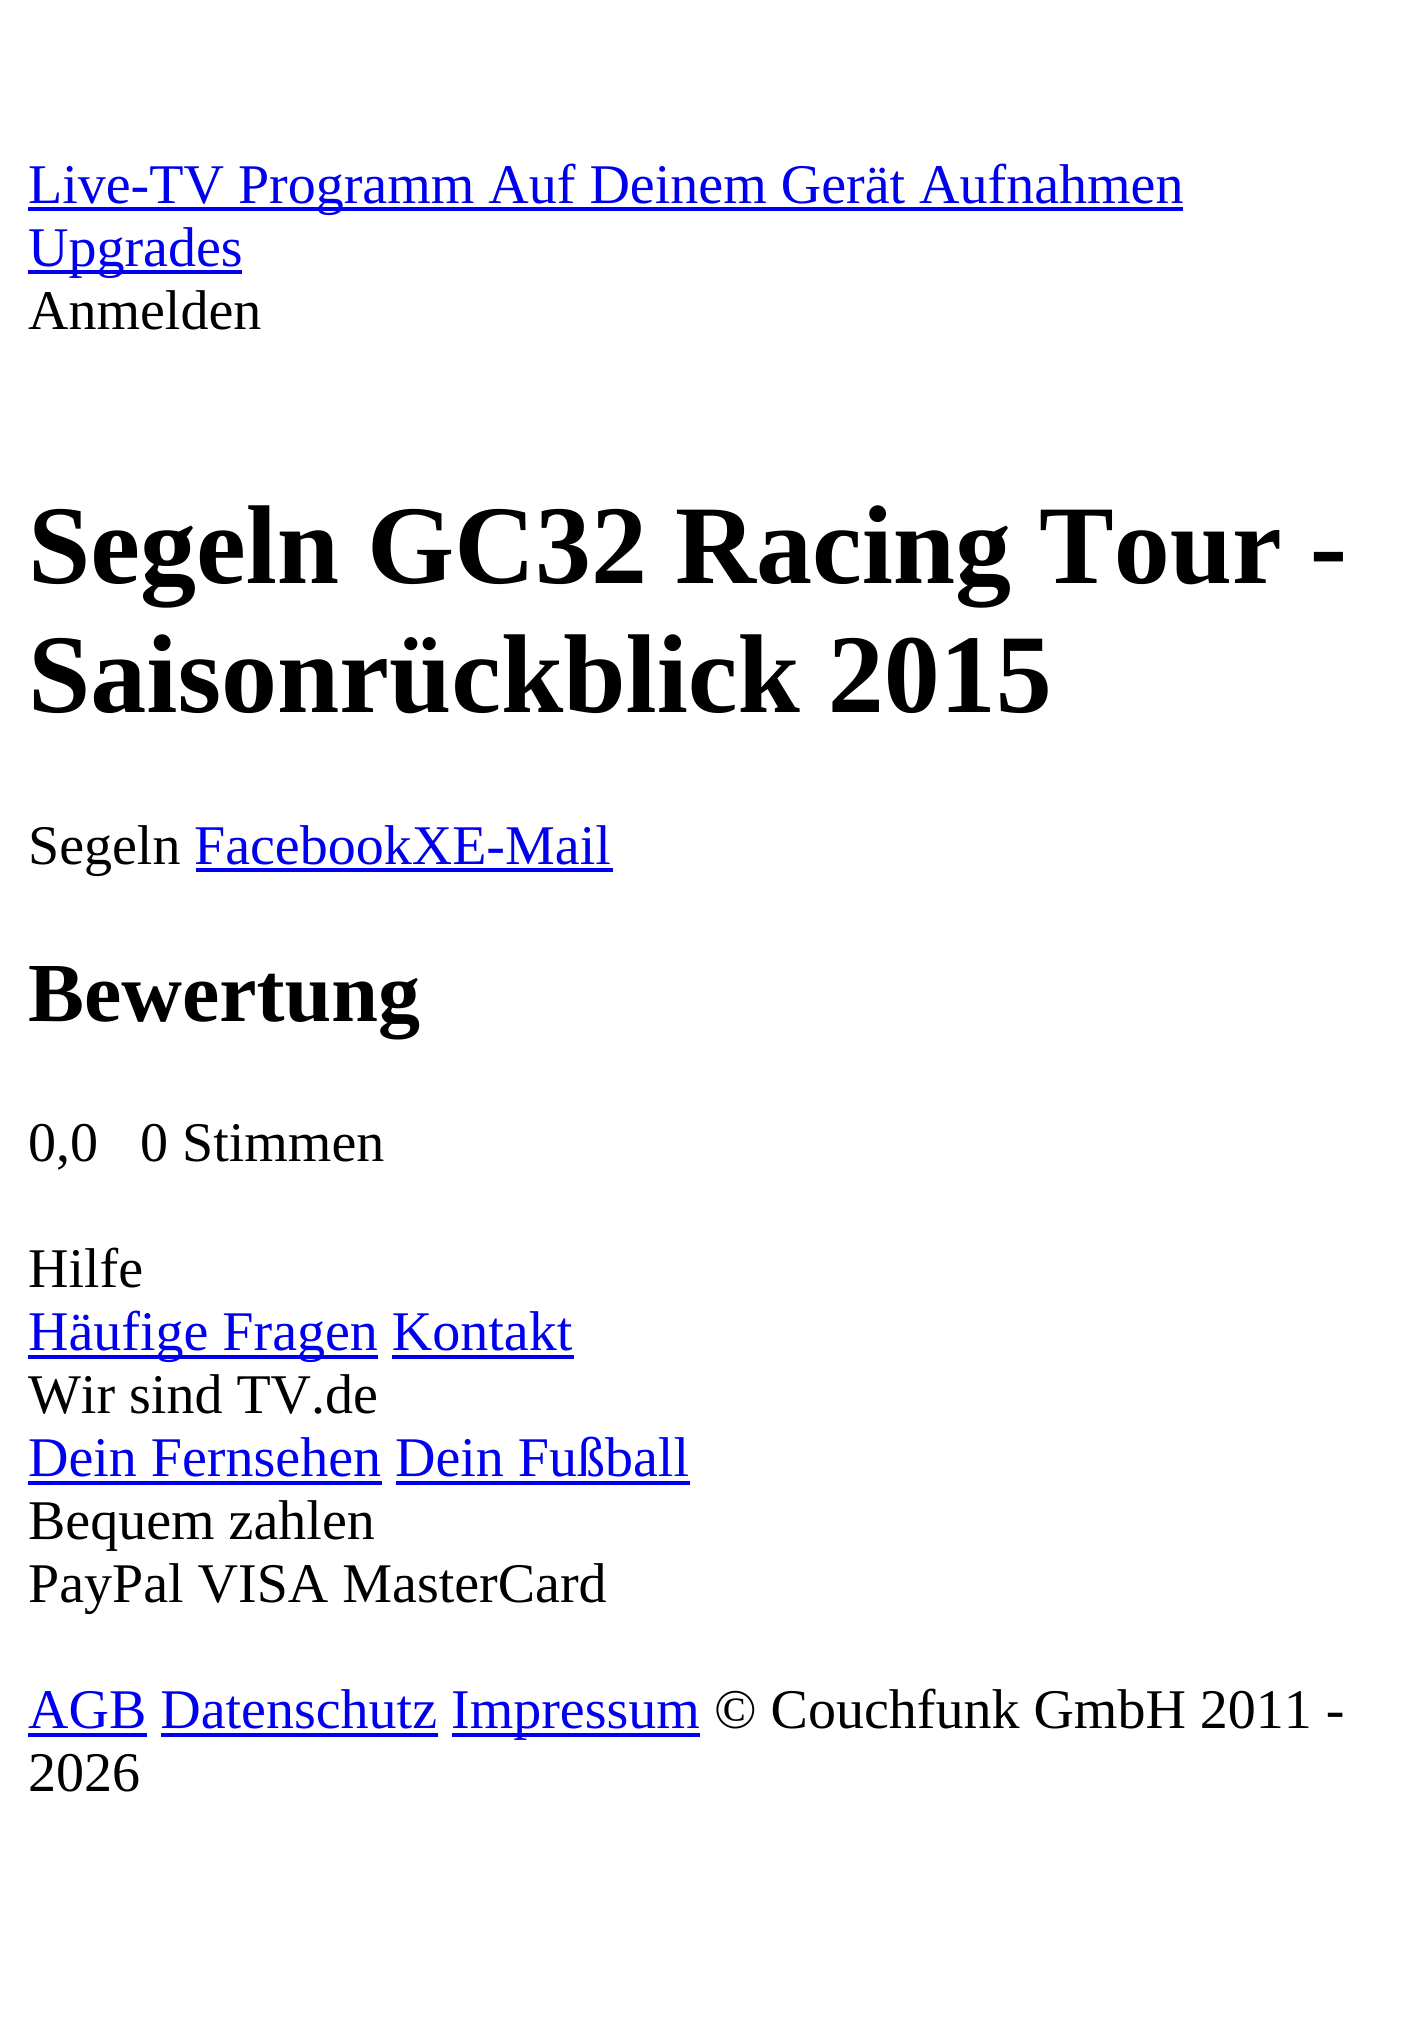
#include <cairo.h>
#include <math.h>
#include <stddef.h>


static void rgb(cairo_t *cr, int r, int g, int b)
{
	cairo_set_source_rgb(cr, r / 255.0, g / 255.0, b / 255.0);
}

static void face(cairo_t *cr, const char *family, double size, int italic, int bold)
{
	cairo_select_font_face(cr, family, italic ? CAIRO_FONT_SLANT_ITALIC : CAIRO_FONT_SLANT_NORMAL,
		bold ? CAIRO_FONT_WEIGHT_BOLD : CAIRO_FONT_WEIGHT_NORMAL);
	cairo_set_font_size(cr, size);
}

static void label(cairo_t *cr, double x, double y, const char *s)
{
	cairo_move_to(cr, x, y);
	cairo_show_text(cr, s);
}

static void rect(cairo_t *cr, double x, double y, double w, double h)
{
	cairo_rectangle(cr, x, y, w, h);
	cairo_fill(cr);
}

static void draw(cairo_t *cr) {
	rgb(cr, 255, 255, 255);
	cairo_paint(cr);
	rgb(cr, 0, 0, 238);
	rect(cr, 28, 207, 1155, 4);
	face(cr, "Liberation Serif", 56, 0, 0);
	label(cr, 28, 203, "Live-TV Programm Auf Deinem Gerät Aufnahmen");
	rect(cr, 28, 270, 214, 4);
	label(cr, 28, 266, "Upgrades");
	rgb(cr, 0, 0, 0);
	label(cr, 28, 329, "Anmelden");
	face(cr, "Liberation Serif", 112, 0, 1);
	label(cr, 28, 583, "Segeln GC32 Racing Tour -");
	label(cr, 28, 712, "Saisonrückblick 2015");
	face(cr, "Liberation Serif", 56, 0, 0);
	label(cr, 28, 864, "Segeln");
	rgb(cr, 0, 0, 238);
	label(cr, 194, 864, "FacebookXE-Mail");
	rect(cr, 196, 868, 417, 4);
	face(cr, "Liberation Serif", 84, 0, 1);
	rgb(cr, 0, 0, 0);
	label(cr, 28, 1021, "Bewertung");
	face(cr, "Liberation Serif", 56, 0, 0);
	label(cr, 28, 1161, "0,0");
	label(cr, 140, 1161, "0 Stimmen");
	label(cr, 28, 1287, "Hilfe");
	rgb(cr, 0, 0, 238);
	rect(cr, 28, 1355, 350, 4);
	label(cr, 28, 1350, "Häufige Fragen Kontakt");
	rect(cr, 392, 1355, 182, 4);
	rgb(cr, 0, 0, 0);
	label(cr, 28, 1413, "Wir sind TV.de");
	rgb(cr, 0, 0, 238);
	label(cr, 28, 1476, "Dein Fernsehen Dein Fußball");
	rect(cr, 28, 1481, 354, 4);
	rect(cr, 396, 1481, 294, 4);
	rgb(cr, 0, 0, 0);
	label(cr, 28, 1539, "Bequem zahlen");
	label(cr, 28, 1602, "PayPal VISA MasterCard");
	rgb(cr, 0, 0, 238);
	label(cr, 28, 1728, "AGB Datenschutz");
	rect(cr, 28, 1733, 119, 4);
	rect(cr, 452, 1733, 248, 4);
	label(cr, 451, 1728, "Impressum");
	rgb(cr, 0, 0, 0);
	label(cr, 714, 1728, "© Couchfunk GmbH 2011 -");
	rgb(cr, 0, 0, 238);
	rect(cr, 161, 1733, 277, 4);
	rgb(cr, 0, 0, 0);
	label(cr, 28, 1791, "2026");
}

int main(void) {
	cairo_surface_t *surface = cairo_image_surface_create(CAIRO_FORMAT_RGB24, 1426, 2017);
	cairo_t *cr = cairo_create(surface);
	cairo_font_options_t *options = cairo_font_options_create();
	cairo_font_options_set_hint_metrics(options, CAIRO_HINT_METRICS_OFF);
	cairo_font_options_set_hint_style(options, CAIRO_HINT_STYLE_NONE);
	cairo_set_font_options(cr, options);
	cairo_set_miter_limit(cr, 4);
	draw(cr);
	cairo_surface_write_to_png(surface, "render.png");
	cairo_font_options_destroy(options);
	cairo_destroy(cr);
	cairo_surface_destroy(surface);
	return 0;
}
